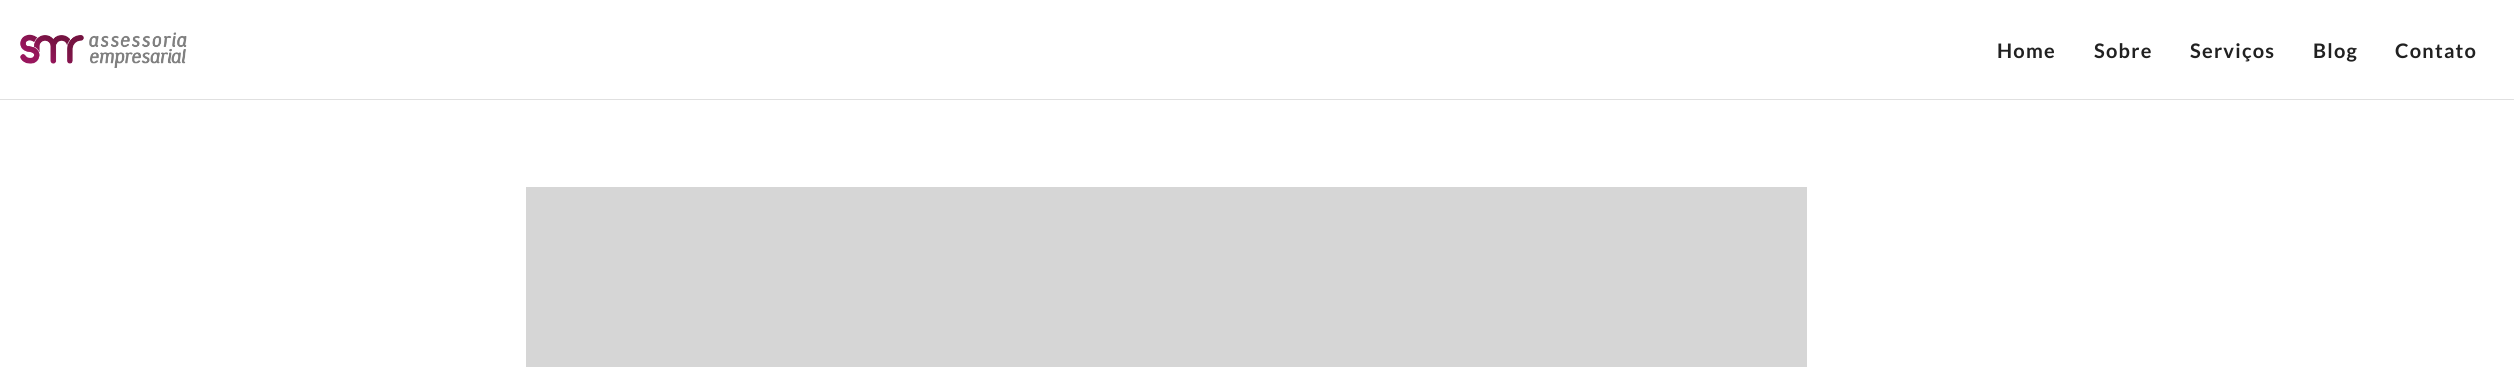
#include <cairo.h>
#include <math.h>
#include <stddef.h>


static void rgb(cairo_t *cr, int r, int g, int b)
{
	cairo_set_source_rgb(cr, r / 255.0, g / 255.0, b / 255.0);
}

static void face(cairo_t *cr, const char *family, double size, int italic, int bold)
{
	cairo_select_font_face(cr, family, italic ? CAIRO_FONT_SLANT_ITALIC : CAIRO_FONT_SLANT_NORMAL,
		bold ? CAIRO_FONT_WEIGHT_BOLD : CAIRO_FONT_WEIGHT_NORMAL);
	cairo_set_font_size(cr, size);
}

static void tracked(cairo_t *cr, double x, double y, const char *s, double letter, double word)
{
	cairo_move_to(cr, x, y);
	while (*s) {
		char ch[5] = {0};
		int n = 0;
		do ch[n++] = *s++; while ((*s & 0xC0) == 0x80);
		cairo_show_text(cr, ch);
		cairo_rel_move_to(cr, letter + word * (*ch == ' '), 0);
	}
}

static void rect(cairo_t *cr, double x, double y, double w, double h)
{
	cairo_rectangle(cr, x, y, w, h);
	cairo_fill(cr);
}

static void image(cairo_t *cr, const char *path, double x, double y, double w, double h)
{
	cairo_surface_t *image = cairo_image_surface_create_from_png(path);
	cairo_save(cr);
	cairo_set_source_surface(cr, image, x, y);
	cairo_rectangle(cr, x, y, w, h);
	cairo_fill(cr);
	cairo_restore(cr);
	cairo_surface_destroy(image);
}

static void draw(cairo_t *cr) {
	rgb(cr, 255, 255, 255);
	cairo_paint(cr);
	rgb(cr, 224, 224, 224);
	rect(cr, 0, 99, 2514, 1);
	image(cr, "image0.png", 20, 32, 167, 36);
	face(cr, "Lato", 20, 0, 1);
	rgb(cr, 33, 33, 33);
	tracked(cr, 1997, 58, "Home", 1.25, 0);
	tracked(cr, 2094, 58, "Sobre", 1.25, 0);
	tracked(cr, 2190, 58, "Serviços", 1.25, 0);
	tracked(cr, 2313, 58, "Blog", 1.25, 0);
	tracked(cr, 2395, 58, "Contato", 1.25, 0);
	rgb(cr, 214, 214, 214);
	rect(cr, 526, 187, 1281, 180);
}

int main(void) {
	cairo_surface_t *surface = cairo_image_surface_create(CAIRO_FORMAT_RGB24, 2514, 367);
	cairo_t *cr = cairo_create(surface);
	cairo_font_options_t *options = cairo_font_options_create();
	cairo_font_options_set_hint_metrics(options, CAIRO_HINT_METRICS_OFF);
	cairo_font_options_set_hint_style(options, CAIRO_HINT_STYLE_NONE);
	cairo_set_font_options(cr, options);
	cairo_set_miter_limit(cr, 4);
	draw(cr);
	cairo_surface_write_to_png(surface, "render.png");
	cairo_font_options_destroy(options);
	cairo_destroy(cr);
	cairo_surface_destroy(surface);
	return 0;
}
